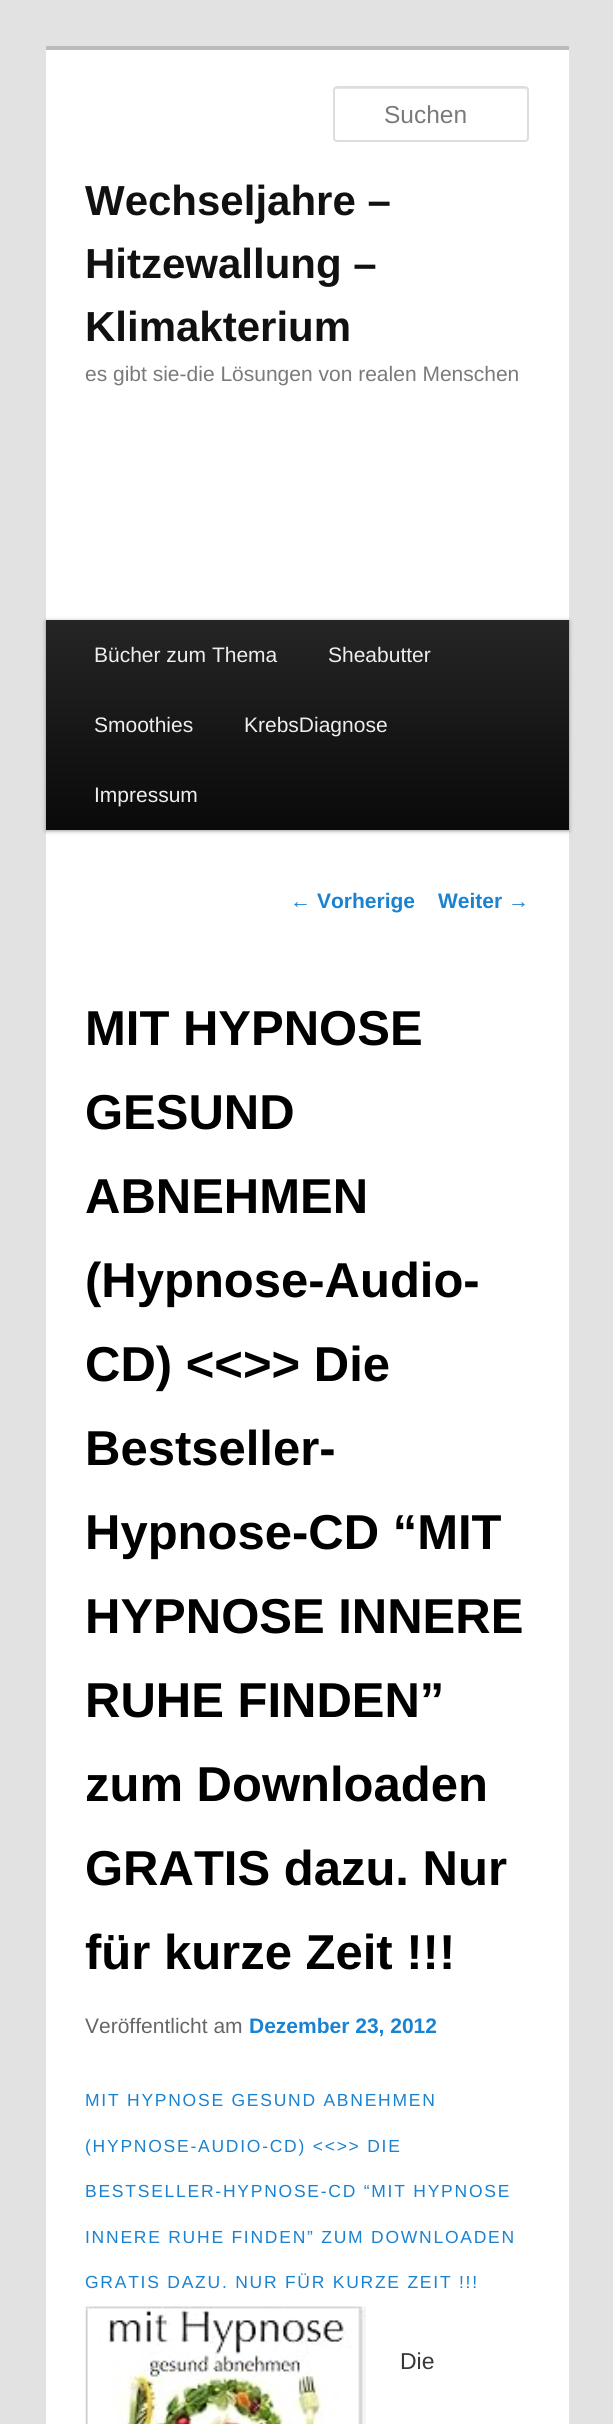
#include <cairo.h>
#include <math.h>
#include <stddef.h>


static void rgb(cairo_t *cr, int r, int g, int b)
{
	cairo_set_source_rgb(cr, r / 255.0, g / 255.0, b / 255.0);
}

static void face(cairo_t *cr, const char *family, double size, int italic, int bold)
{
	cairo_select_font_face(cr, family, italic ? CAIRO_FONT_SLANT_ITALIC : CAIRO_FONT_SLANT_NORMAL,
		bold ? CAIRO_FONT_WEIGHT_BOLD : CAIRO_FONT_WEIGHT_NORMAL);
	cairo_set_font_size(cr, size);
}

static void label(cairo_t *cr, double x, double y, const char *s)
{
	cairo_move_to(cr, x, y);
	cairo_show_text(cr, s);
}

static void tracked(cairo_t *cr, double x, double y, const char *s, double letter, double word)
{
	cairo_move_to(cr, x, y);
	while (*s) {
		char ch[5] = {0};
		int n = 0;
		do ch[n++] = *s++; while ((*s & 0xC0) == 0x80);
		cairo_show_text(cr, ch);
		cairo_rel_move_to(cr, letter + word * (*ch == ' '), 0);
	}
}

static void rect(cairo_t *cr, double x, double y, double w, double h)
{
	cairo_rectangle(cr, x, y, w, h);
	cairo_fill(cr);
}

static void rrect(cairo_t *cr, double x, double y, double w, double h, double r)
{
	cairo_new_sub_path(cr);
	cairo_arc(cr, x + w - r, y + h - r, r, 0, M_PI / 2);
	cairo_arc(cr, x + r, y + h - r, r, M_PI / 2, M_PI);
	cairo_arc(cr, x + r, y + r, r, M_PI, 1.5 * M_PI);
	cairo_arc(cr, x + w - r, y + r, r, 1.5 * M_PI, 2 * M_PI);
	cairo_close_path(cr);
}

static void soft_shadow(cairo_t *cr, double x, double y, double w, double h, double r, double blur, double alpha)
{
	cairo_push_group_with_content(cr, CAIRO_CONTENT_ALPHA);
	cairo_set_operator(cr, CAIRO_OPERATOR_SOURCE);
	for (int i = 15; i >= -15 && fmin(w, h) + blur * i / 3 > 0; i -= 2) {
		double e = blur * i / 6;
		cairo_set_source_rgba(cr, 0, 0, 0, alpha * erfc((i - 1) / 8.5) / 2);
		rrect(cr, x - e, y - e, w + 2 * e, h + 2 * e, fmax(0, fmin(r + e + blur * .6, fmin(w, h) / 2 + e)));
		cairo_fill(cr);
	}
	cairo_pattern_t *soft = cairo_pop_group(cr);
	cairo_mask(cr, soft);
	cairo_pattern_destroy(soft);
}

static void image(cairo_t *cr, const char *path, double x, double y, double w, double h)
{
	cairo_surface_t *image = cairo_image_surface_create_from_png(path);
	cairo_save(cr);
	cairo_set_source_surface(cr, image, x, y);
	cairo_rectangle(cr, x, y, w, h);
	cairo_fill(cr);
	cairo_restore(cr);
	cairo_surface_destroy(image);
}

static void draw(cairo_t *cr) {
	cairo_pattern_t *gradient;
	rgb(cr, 226, 226, 226);
	cairo_paint(cr);
	rgb(cr, 255, 255, 255);
	rect(cr, 46, 50, 523, 2374);
	rgb(cr, 187, 187, 187);
	rect(cr, 46, 46, 523, 4);
	rgb(cr, 230, 230, 230);
	cairo_new_path(cr);
	cairo_move_to(cr, 336, 89);
	cairo_line_to(cr, 525, 89);
	cairo_line_to(cr, 527, 90);
	cairo_line_to(cr, 527, 91);
	cairo_line_to(cr, 527, 90);
	cairo_curve_to(cr, 527, 89, 526, 88, 525, 88);
	cairo_line_to(cr, 336, 88);
	cairo_curve_to(cr, 335, 88, 334, 89, 334, 90);
	cairo_line_to(cr, 334, 91);
	cairo_curve_to(cr, 334, 90, 335, 89, 336, 89);
	cairo_close_path(cr);
	cairo_fill(cr);
	rrect(cr, 334, 87, 194, 54, 3);
	rgb(cr, 221, 221, 221);
	cairo_stroke(cr);
	face(cr, "Liberation Sans", 24.5, 0, 0);
	rgb(cr, 122, 122, 122);
	label(cr, 384, 123, "Suchen");
	face(cr, "Liberation Sans", 42, 0, 1);
	rgb(cr, 17, 17, 17);
	label(cr, 85, 215, "Wechseljahre –");
	label(cr, 85, 278, "Hitzewallung –");
	label(cr, 85, 341, "Klimakterium");
	face(cr, "Liberation Sans", 21, 0, 0);
	rgb(cr, 122, 122, 122);
	label(cr, 85, 381, "es gibt sie-die Lösungen von realen Menschen");
	rgb(cr, 0, 0, 0);
	soft_shadow(cr, 46, 621, 523, 210, 0, 2, 0.4);
	gradient = cairo_pattern_create_linear(307, 620, 307, 830);
	cairo_pattern_add_color_stop_rgba(gradient, 0, 0.145, 0.145, 0.145, 1);
	cairo_pattern_add_color_stop_rgba(gradient, 1, 0.039, 0.039, 0.039, 1);
	cairo_set_source(cr, gradient);
	cairo_pattern_destroy(gradient);
	rect(cr, 46, 620, 523, 210);
	rgb(cr, 238, 238, 238);
	label(cr, 94, 662, "Bücher zum Thema");
	label(cr, 328, 662, "Sheabutter");
	label(cr, 94, 732, "Smoothies");
	label(cr, 244, 732, "KrebsDiagnose");
	label(cr, 94, 802, "Impressum");
	rgb(cr, 25, 130, 209);
	label(cr, 290, 908, "←");
	face(cr, "Liberation Sans", 21, 0, 1);
	label(cr, 317, 908, "Vorherige");
	label(cr, 438, 908, "Weiter");
	face(cr, "Liberation Sans", 21, 0, 0);
	label(cr, 508, 908, "→");
	face(cr, "Liberation Sans", 49, 0, 1);
	rgb(cr, 0, 0, 0);
	label(cr, 85, 1045, "MIT HYPNOSE");
	label(cr, 85, 1129, "GESUND");
	label(cr, 85, 1213, "ABNEHMEN");
	label(cr, 85, 1297, "(Hypnose-Audio-");
	label(cr, 85, 1381, "CD) <<>> Die");
	label(cr, 85, 1465, "Bestseller-");
	label(cr, 85, 1549, "Hypnose-CD “MIT");
	label(cr, 85, 1633, "HYPNOSE INNERE");
	label(cr, 85, 1717, "RUHE FINDEN”");
	label(cr, 85, 1801, "zum Downloaden");
	label(cr, 85, 1885, "GRATIS dazu. Nur");
	label(cr, 85, 1969, "für kurze Zeit !!!");
	face(cr, "Liberation Sans", 21, 0, 0);
	rgb(cr, 102, 102, 102);
	label(cr, 85, 2033, "Veröffentlicht am");
	face(cr, "Liberation Sans", 21, 0, 1);
	rgb(cr, 25, 130, 209);
	label(cr, 249, 2033, "Dezember 23, 2012");
	face(cr, "Liberation Sans", 17.5, 0, 0);
	tracked(cr, 85, 2106, "MIT HYPNOSE GESUND ABNEHMEN", 1.75, 0);
	tracked(cr, 85, 2152, "(HYPNOSE-AUDIO-CD) <<>> DIE", 1.75, 0);
	tracked(cr, 85, 2197, "BESTSELLER-HYPNOSE-CD “MIT HYPNOSE", 1.75, 0);
	tracked(cr, 85, 2243, "INNERE RUHE FINDEN” ZUM DOWNLOADEN", 1.75, 0);
	tracked(cr, 85, 2288, "GRATIS DAZU. NUR FÜR KURZE ZEIT !!!", 1.75, 0);
	image(cr, "image0.png", 85, 2306, 281, 118);
	face(cr, "Liberation Sans", 23, 0, 0);
	rgb(cr, 55, 55, 55);
	label(cr, 400, 2369, "Die");
}

int main(void) {
	cairo_surface_t *surface = cairo_image_surface_create(CAIRO_FORMAT_RGB24, 613, 2424);
	cairo_t *cr = cairo_create(surface);
	cairo_font_options_t *options = cairo_font_options_create();
	cairo_font_options_set_hint_metrics(options, CAIRO_HINT_METRICS_OFF);
	cairo_font_options_set_hint_style(options, CAIRO_HINT_STYLE_NONE);
	cairo_set_font_options(cr, options);
	cairo_set_miter_limit(cr, 4);
	draw(cr);
	cairo_surface_write_to_png(surface, "render.png");
	cairo_font_options_destroy(options);
	cairo_destroy(cr);
	cairo_surface_destroy(surface);
	return 0;
}
